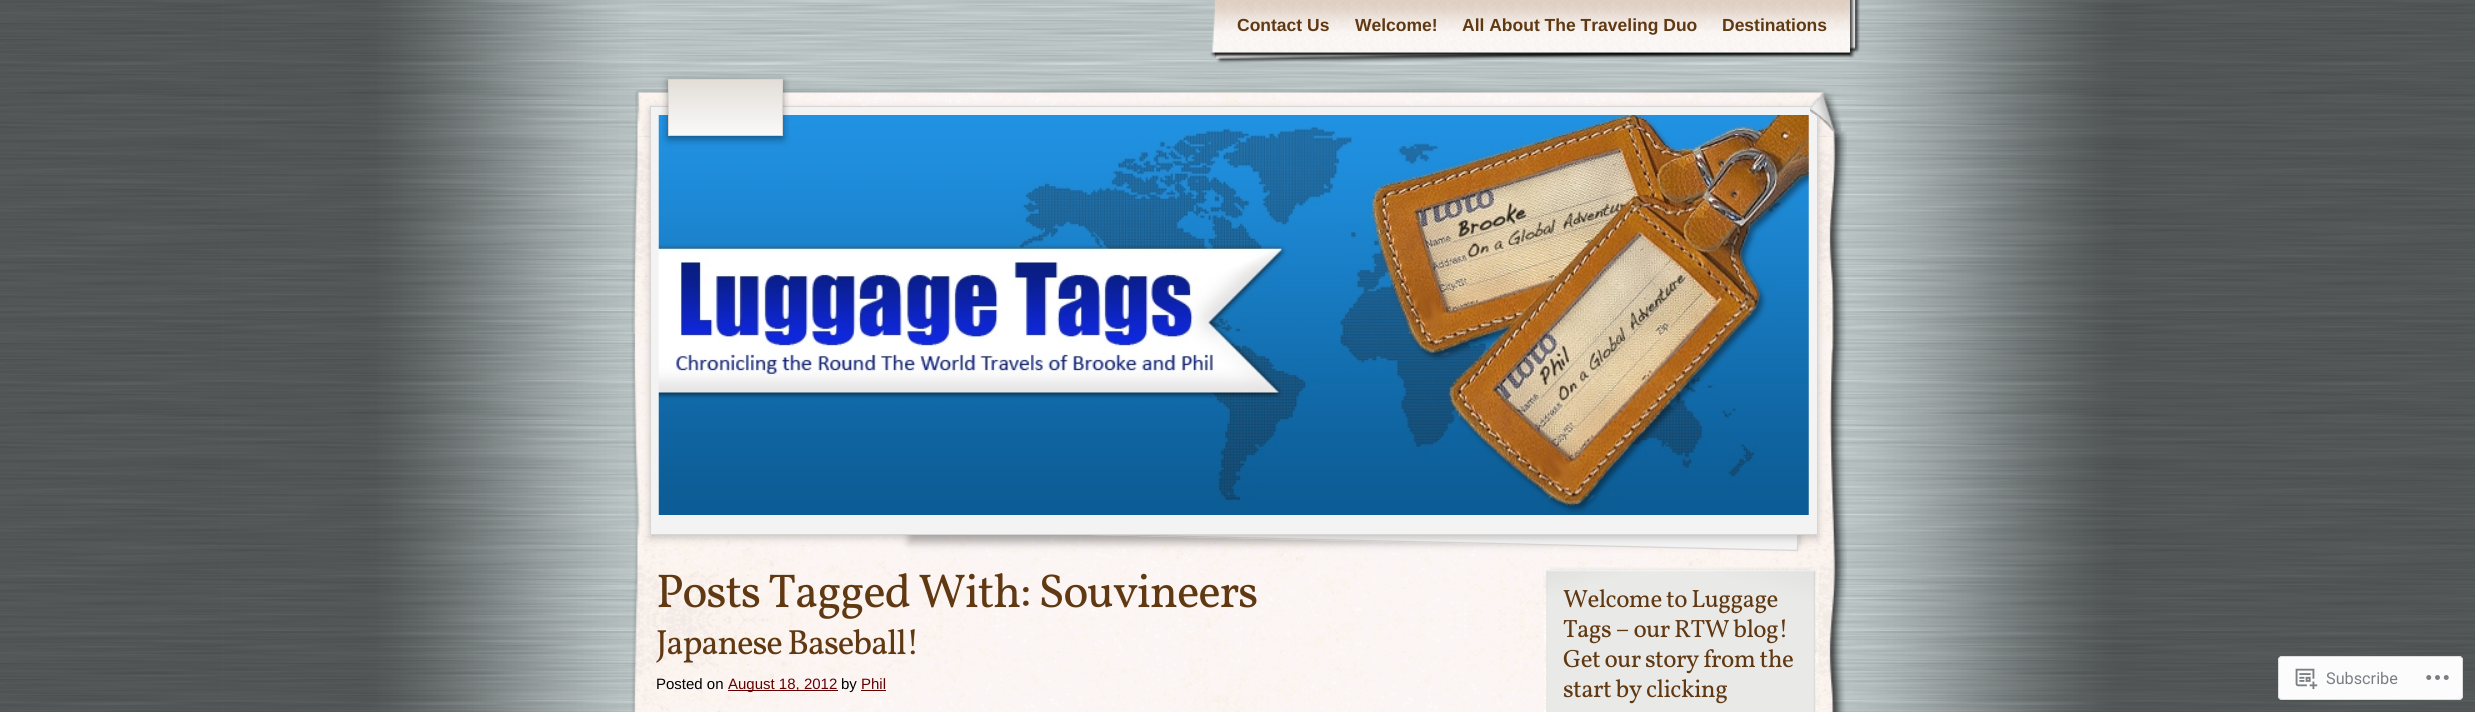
#include <cairo.h>
#include <math.h>
#include <stddef.h>


static void rgb(cairo_t *cr, int r, int g, int b)
{
	cairo_set_source_rgb(cr, r / 255.0, g / 255.0, b / 255.0);
}

static void face(cairo_t *cr, const char *family, double size, int italic, int bold)
{
	cairo_select_font_face(cr, family, italic ? CAIRO_FONT_SLANT_ITALIC : CAIRO_FONT_SLANT_NORMAL,
		bold ? CAIRO_FONT_WEIGHT_BOLD : CAIRO_FONT_WEIGHT_NORMAL);
	cairo_set_font_size(cr, size);
}

static void label(cairo_t *cr, double x, double y, const char *s)
{
	cairo_move_to(cr, x, y);
	cairo_show_text(cr, s);
}

static void tracked(cairo_t *cr, double x, double y, const char *s, double letter, double word)
{
	cairo_move_to(cr, x, y);
	while (*s) {
		char ch[5] = {0};
		int n = 0;
		do ch[n++] = *s++; while ((*s & 0xC0) == 0x80);
		cairo_show_text(cr, ch);
		cairo_rel_move_to(cr, letter + word * (*ch == ' '), 0);
	}
}

static void rect(cairo_t *cr, double x, double y, double w, double h)
{
	cairo_rectangle(cr, x, y, w, h);
	cairo_fill(cr);
}

static void rrect(cairo_t *cr, double x, double y, double w, double h, double r)
{
	cairo_new_sub_path(cr);
	cairo_arc(cr, x + w - r, y + h - r, r, 0, M_PI / 2);
	cairo_arc(cr, x + r, y + h - r, r, M_PI / 2, M_PI);
	cairo_arc(cr, x + r, y + r, r, M_PI, 1.5 * M_PI);
	cairo_arc(cr, x + w - r, y + r, r, 1.5 * M_PI, 2 * M_PI);
	cairo_close_path(cr);
}

static void soft_shadow(cairo_t *cr, double x, double y, double w, double h, double r, double blur, double alpha)
{
	cairo_push_group_with_content(cr, CAIRO_CONTENT_ALPHA);
	cairo_set_operator(cr, CAIRO_OPERATOR_SOURCE);
	for (int i = 15; i >= -15 && fmin(w, h) + blur * i / 3 > 0; i -= 2) {
		double e = blur * i / 6;
		cairo_set_source_rgba(cr, 0, 0, 0, alpha * erfc((i - 1) / 8.5) / 2);
		rrect(cr, x - e, y - e, w + 2 * e, h + 2 * e, fmax(0, fmin(r + e + blur * .6, fmin(w, h) / 2 + e)));
		cairo_fill(cr);
	}
	cairo_pattern_t *soft = cairo_pop_group(cr);
	cairo_mask(cr, soft);
	cairo_pattern_destroy(soft);
}

static void image(cairo_t *cr, const char *path, double x, double y, double w, double h)
{
	cairo_surface_t *image = cairo_image_surface_create_from_png(path);
	cairo_save(cr);
	cairo_set_source_surface(cr, image, x, y);
	cairo_rectangle(cr, x, y, w, h);
	cairo_fill(cr);
	cairo_restore(cr);
	cairo_surface_destroy(image);
}

static void draw(cairo_t *cr) {
	cairo_pattern_t *gradient;
	rgb(cr, 255, 255, 255);
	cairo_paint(cr);
	image(cr, "image0.png", 0, 0, 2475, 712);
	image(cr, "image1.png", 0, 0, 2475, 712);
	image(cr, "image2.png", 1210, 0, 640, 64);
	image(cr, "image3.png", 1215, 0, 635, 58);
	face(cr, "Liberation Sans", 17.5, 0, 1);
	rgb(cr, 96, 57, 19);
	label(cr, 1237, 31, "Contact Us");
	label(cr, 1355, 31, "Welcome!");
	label(cr, 1462, 31, "All About The Traveling Duo");
	label(cr, 1722, 31, "Destinations");
	image(cr, "image4.png", 1850, 0, 10, 58);
	image(cr, "image8.png", 631, 136, 1216, 576);
	rgb(cr, 0, 0, 0);
	soft_shadow(cr, 908, 399, 892, 145, 0, 4, 0.2);
	rgb(cr, 243, 243, 243);
	cairo_new_path(cr);
	cairo_move_to(cr, 909, 386);
	cairo_line_to(cr, 1802, 406);
	cairo_line_to(cr, 1798, 551);
	cairo_line_to(cr, 906, 531);
	cairo_close_path(cr);
	cairo_fill(cr);
	cairo_new_path(cr);
	cairo_move_to(cr, 910, 386.5);
	cairo_line_to(cr, 1801, 406.5);
	cairo_line_to(cr, 1797.5, 550.5);
	cairo_line_to(cr, 906.5, 530);
	cairo_close_path(cr);
	rgb(cr, 217, 213, 211);
	cairo_set_line_width(cr, 1.3);
	cairo_stroke(cr);
	image(cr, "image6.png", 635, 89, 1212, 48);
	rgb(cr, 0, 0, 0);
	soft_shadow(cr, 650, 109, 1168, 429, 0, 4, 0.2);
	rgb(cr, 243, 243, 243);
	cairo_rectangle(cr, 650.5, 106.5, 1167, 428);
	cairo_fill_preserve(cr);
	rgb(cr, 217, 213, 211);
	cairo_set_line_width(cr, 1);
	cairo_stroke(cr);
	image(cr, "image5.png", 658, 115, 1151, 400);
	rgb(cr, 0, 0, 0);
	soft_shadow(cr, 668, 81, 115, 58, 0, 4, 0.4);
	gradient = cairo_pattern_create_linear(725, 80, 725, 135);
	cairo_pattern_add_color_stop_rgba(gradient, 0, 0.89, 0.867, 0.843, 1);
	cairo_pattern_add_color_stop_rgba(gradient, 1, 0.98, 0.98, 0.98, 1);
	cairo_set_source(cr, gradient);
	cairo_pattern_destroy(gradient);
	rect(cr, 669, 80, 113, 55);
	cairo_rectangle(cr, 668.5, 79.5, 114, 56);
	rgb(cr, 217, 213, 211);
	cairo_stroke(cr);
	image(cr, "image7.png", 1810, 92, 32, 40);
	face(cr, "Vollkorn", 47.5, 0, 0);
	rgb(cr, 96, 57, 19);
	tracked(cr, 656, 607, "Posts Tagged With: Souvineers", -1.25, 0);
	face(cr, "Vollkorn", 35, 0, 0);
	tracked(cr, 656, 654, "Japanese Baseball!", -1.25, 0);
	face(cr, "Liberation Sans", 15, 0, 0);
	rgb(cr, 0, 0, 0);
	label(cr, 656, 689, "Posted on");
	rgb(cr, 102, 0, 0);
	rect(cr, 728, 690, 110, 1);
	label(cr, 728, 689, "August 18, 2012");
	rgb(cr, 0, 0, 0);
	label(cr, 841, 689, "by");
	rgb(cr, 102, 0, 0);
	label(cr, 861, 689, "Phil");
	rect(cr, 861, 690, 25, 1);
	rgb(cr, 233, 233, 232);
	rect(cr, 1558, 568, 261, 144);
	image(cr, "image9.png", 1543, 567, 276, 145);
	face(cr, "Vollkorn", 25, 0, 0);
	rgb(cr, 96, 57, 19);
	tracked(cr, 1563, 607, "Welcome to Luggage", -0.6, 0);
	tracked(cr, 1563, 637, "Tags – our RTW blog!", -0.6, 0);
	tracked(cr, 1563, 667, "Get our story from the", -0.6, 0);
	tracked(cr, 1563, 697, "start by clicking", -0.6, 0);
	cairo_set_source_rgba(cr, 1, 1, 1, 0.98);
	rrect(cr, 2278, 656, 185, 44, 4);
	cairo_fill(cr);
	rrect(cr, 2278.5, 656.5, 184, 43, 3.5);
	cairo_set_source_rgba(cr, 0.863, 0.863, 0.871, 0.98);
	cairo_stroke(cr);
	image(cr, "image10.png", 2295, 668, 23, 22);
	face(cr, "Roboto", 16.25, 0, 0);
	rgb(cr, 123, 127, 132);
	label(cr, 2326, 684, "Subscribe");
	image(cr, "image11.png", 2426, 675, 23, 5);
}

int main(void) {
	cairo_surface_t *surface = cairo_image_surface_create(CAIRO_FORMAT_RGB24, 2475, 712);
	cairo_t *cr = cairo_create(surface);
	cairo_font_options_t *options = cairo_font_options_create();
	cairo_font_options_set_hint_metrics(options, CAIRO_HINT_METRICS_OFF);
	cairo_font_options_set_hint_style(options, CAIRO_HINT_STYLE_NONE);
	cairo_set_font_options(cr, options);
	cairo_set_miter_limit(cr, 4);
	draw(cr);
	cairo_surface_write_to_png(surface, "render.png");
	cairo_font_options_destroy(options);
	cairo_destroy(cr);
	cairo_surface_destroy(surface);
	return 0;
}
